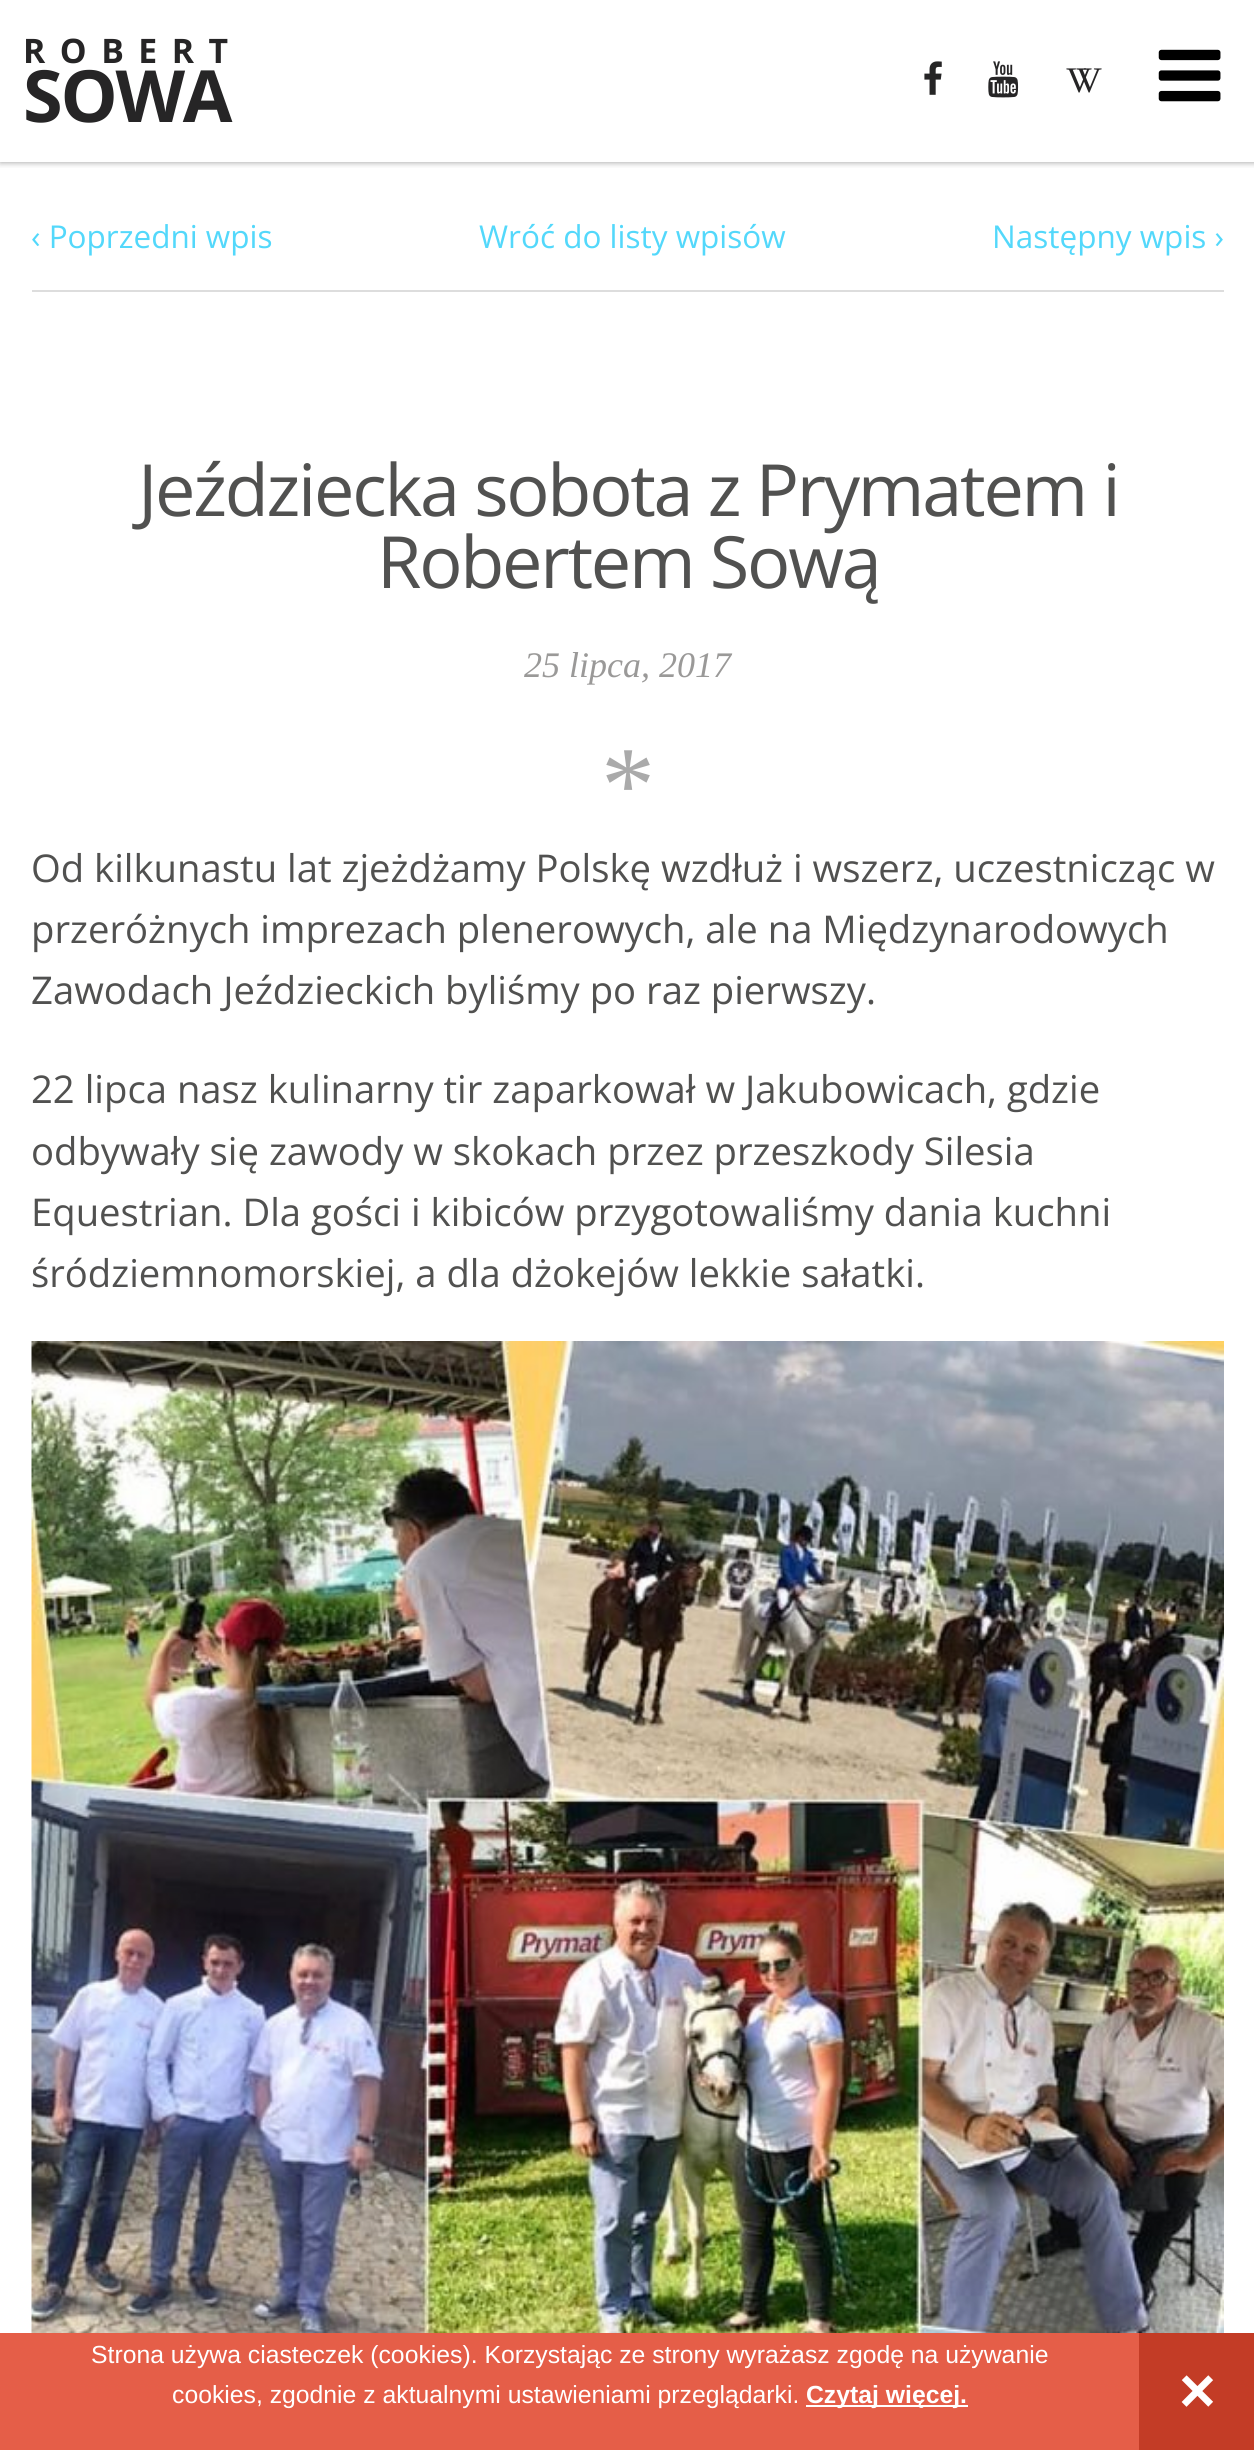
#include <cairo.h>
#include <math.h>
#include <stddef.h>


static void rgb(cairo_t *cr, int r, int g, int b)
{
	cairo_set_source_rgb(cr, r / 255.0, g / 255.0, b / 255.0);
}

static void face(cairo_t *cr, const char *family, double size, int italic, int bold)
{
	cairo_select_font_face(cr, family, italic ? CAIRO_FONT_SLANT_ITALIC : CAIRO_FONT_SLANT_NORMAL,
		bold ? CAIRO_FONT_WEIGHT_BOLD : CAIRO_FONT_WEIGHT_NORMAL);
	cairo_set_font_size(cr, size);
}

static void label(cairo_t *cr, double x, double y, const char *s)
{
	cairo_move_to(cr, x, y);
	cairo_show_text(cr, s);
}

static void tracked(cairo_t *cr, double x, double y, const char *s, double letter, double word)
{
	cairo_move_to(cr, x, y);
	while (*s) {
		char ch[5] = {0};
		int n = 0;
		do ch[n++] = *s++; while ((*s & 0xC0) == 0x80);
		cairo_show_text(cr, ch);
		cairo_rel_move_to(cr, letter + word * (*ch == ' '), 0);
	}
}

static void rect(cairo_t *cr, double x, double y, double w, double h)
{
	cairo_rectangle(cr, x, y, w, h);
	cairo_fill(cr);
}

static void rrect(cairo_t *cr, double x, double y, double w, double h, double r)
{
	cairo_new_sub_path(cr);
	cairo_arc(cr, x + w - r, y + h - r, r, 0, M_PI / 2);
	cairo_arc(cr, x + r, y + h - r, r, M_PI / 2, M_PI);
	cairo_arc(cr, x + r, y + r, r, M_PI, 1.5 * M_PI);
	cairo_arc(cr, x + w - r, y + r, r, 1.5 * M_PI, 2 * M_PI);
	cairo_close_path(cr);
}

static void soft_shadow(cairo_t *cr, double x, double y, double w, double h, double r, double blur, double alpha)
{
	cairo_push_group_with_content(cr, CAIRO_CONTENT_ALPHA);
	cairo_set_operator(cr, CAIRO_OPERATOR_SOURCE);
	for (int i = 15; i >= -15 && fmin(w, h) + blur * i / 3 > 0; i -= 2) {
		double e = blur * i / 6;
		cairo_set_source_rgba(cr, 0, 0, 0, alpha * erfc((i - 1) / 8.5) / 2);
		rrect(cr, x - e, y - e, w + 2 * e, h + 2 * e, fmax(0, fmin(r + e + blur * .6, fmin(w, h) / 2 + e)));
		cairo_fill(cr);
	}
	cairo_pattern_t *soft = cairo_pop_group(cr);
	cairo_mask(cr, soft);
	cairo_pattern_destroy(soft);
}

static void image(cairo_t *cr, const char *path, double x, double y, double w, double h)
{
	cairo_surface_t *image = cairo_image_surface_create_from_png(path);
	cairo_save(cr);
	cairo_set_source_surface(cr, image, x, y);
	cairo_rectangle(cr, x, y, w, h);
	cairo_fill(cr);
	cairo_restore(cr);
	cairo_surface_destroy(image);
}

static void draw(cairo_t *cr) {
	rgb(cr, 255, 255, 255);
	cairo_paint(cr);
	cairo_save(cr);
	cairo_rectangle(cr, 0, 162, 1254, 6);
	cairo_clip(cr);
	rgb(cr, 0, 0, 0);
	soft_shadow(cr, 0, 0, 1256, 162, 0, 3.5, 0.4);
	cairo_restore(cr);
	face(cr, "Open Sans", 33.75, 0, 1);
	rgb(cr, 38, 37, 38);
	tracked(cr, 23, 63, "ROBERT", 14.5, 0);
	face(cr, "Open Sans", 72, 0, 1);
	tracked(cr, 23, 122, "SOWA", -2.25, 0);
	image(cr, "image0.png", 924, 61, 18, 34);
	image(cr, "image1.png", 988, 61, 31, 37);
	face(cr, "Liberation Serif", 36, 0, 0);
	tracked(cr, 1066, 92, "VV", -16, 0);
	image(cr, "image2.png", 1158, 49, 63, 53);
	rgb(cr, 221, 221, 221);
	rect(cr, 32, 290, 1192, 2);
	face(cr, "Open Sans", 31.5, 0, 0);
	rgb(cr, 83, 216, 251);
	label(cr, 31, 248, "‹ Poprzedni wpis");
	label(cr, 479, 248, "Wróć do listy wpisów");
	label(cr, 992, 248, "Następny wpis ›");
	face(cr, "Open Sans", 72, 0, 0);
	rgb(cr, 81, 81, 80);
	tracked(cr, 138, 516, "Jeździecka sobota z Prymatem i", -2.25, 0);
	tracked(cr, 377, 588, "Robertem Sową", -2.25, 0);
	face(cr, "Liberation Serif", 36, 1, 0);
	rgb(cr, 154, 153, 152);
	label(cr, 524, 677, "25 lipca, 2017");
	face(cr, "Liberation Serif", 108, 0, 0);
	rgb(cr, 170, 170, 170);
	label(cr, 601, 821, "*");
	face(cr, "Open Sans", 38.25, 0, 0);
	rgb(cr, 81, 81, 80);
	label(cr, 31, 882, "Od kilkunastu lat zjeżdżamy Polskę wzdłuż i wszerz, uczestnicząc w");
	label(cr, 31, 943, "przeróżnych imprezach plenerowych, ale na Międzynarodowych");
	label(cr, 31, 1004, "Zawodach Jeździeckich byliśmy po raz pierwszy.");
	label(cr, 31, 1103, "22 lipca nasz kulinarny tir zaparkował w Jakubowicach, gdzie");
	label(cr, 31, 1165, "odbywały się zawody w skokach przez przeszkody Silesia");
	label(cr, 31, 1226, "Equestrian. Dla gości i kibiców przygotowaliśmy dania kuchni");
	label(cr, 31, 1287, "śródziemnomorskiej, a dla dżokejów lekkie sałatki.");
	image(cr, "image3.png", 31, 1341, 1193, 992);
	rgb(cr, 229, 94, 72);
	rect(cr, 0, 2333, 1139, 117);
	face(cr, "Liberation Sans", 24.75, 0, 0);
	rgb(cr, 255, 255, 255);
	label(cr, 91, 2363, "Strona używa ciasteczek (cookies). Korzystając ze strony wyrażasz zgodę na używanie");
	label(cr, 172, 2403, "cookies, zgodnie z aktualnymi ustawieniami przeglądarki.");
	rect(cr, 806, 2405, 162, 2);
	face(cr, "Liberation Sans", 24.75, 0, 1);
	label(cr, 806, 2403, "Czytaj więcej.");
	rgb(cr, 195, 60, 38);
	rect(cr, 1139, 2333, 115, 117);
	face(cr, "Liberation Sans", 63, 0, 1);
	rgb(cr, 255, 255, 255);
	label(cr, 1179, 2412, "×");
}

int main(void) {
	cairo_surface_t *surface = cairo_image_surface_create(CAIRO_FORMAT_RGB24, 1254, 2450);
	cairo_t *cr = cairo_create(surface);
	cairo_font_options_t *options = cairo_font_options_create();
	cairo_font_options_set_hint_metrics(options, CAIRO_HINT_METRICS_OFF);
	cairo_font_options_set_hint_style(options, CAIRO_HINT_STYLE_NONE);
	cairo_set_font_options(cr, options);
	cairo_set_miter_limit(cr, 4);
	draw(cr);
	cairo_surface_write_to_png(surface, "render.png");
	cairo_font_options_destroy(options);
	cairo_destroy(cr);
	cairo_surface_destroy(surface);
	return 0;
}
